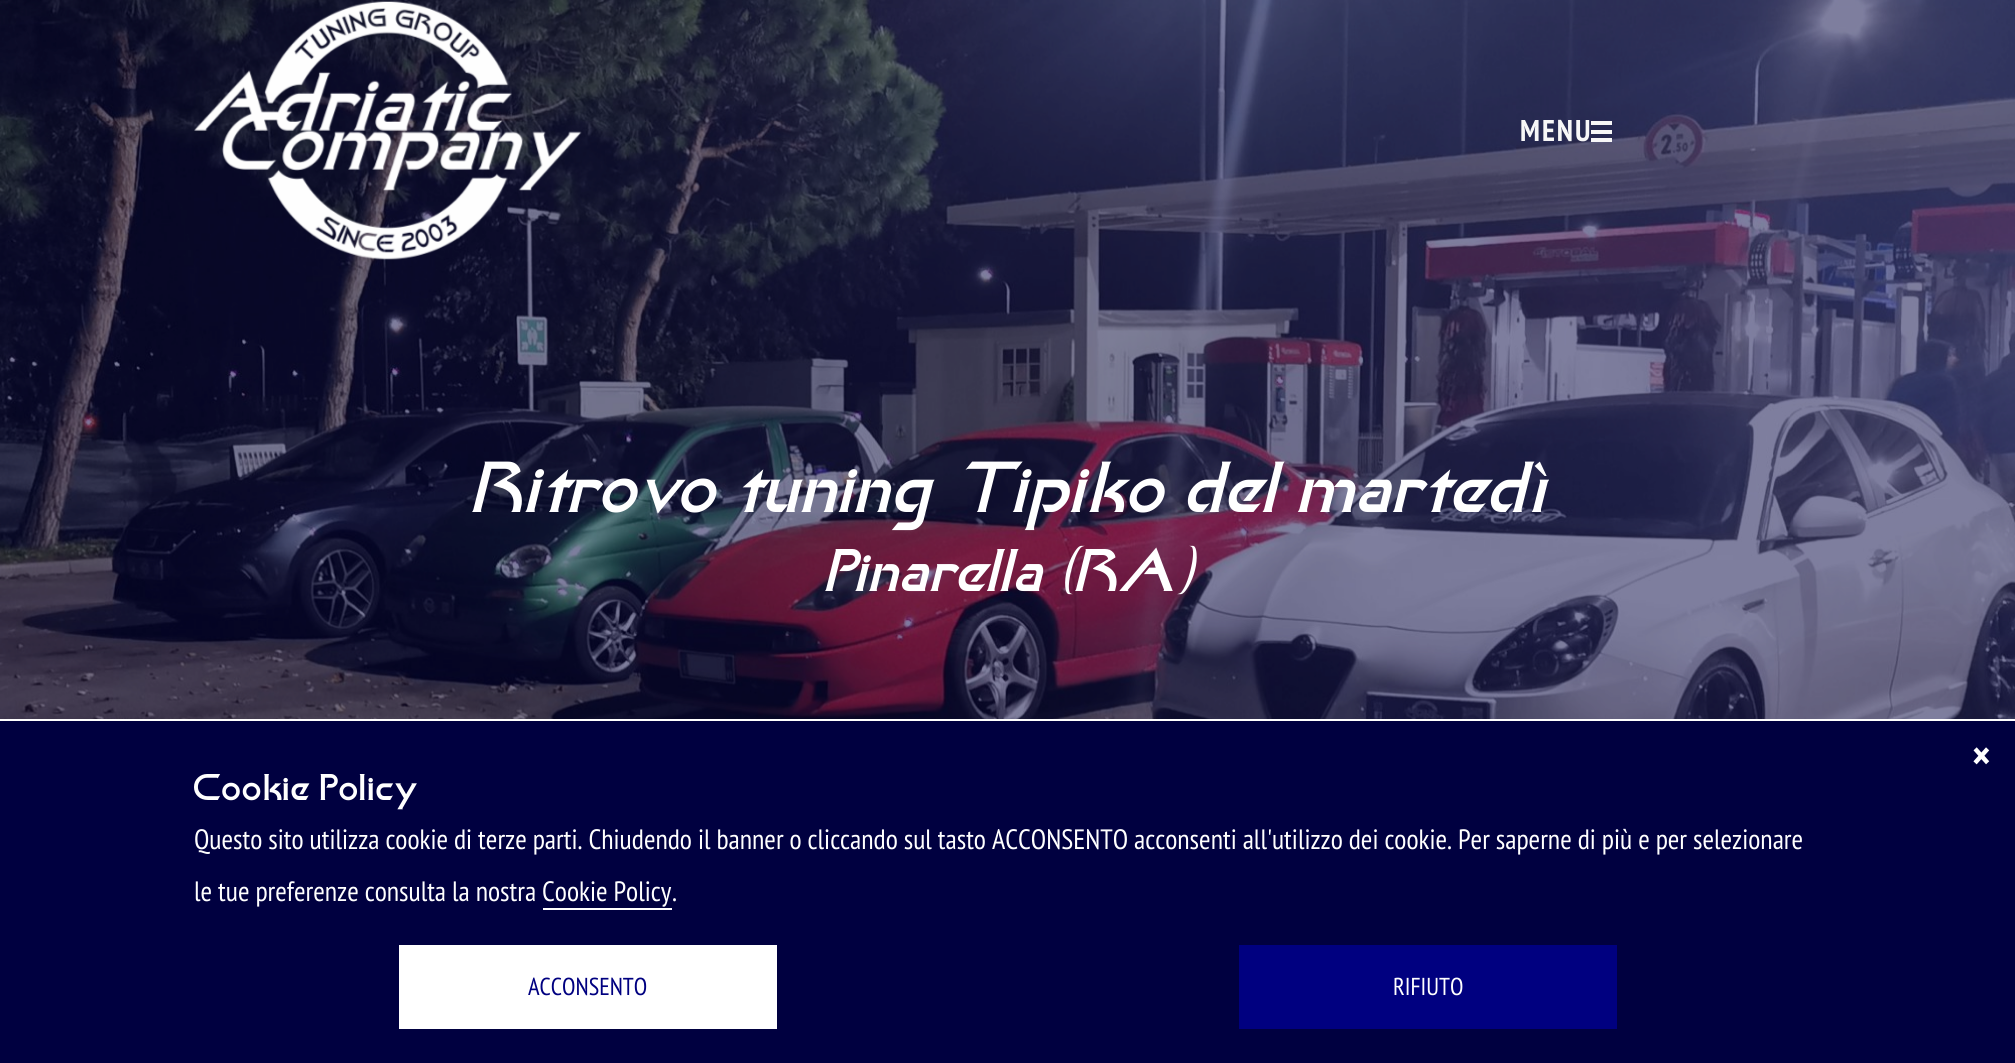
#include <cairo.h>
#include <math.h>
#include <stddef.h>


static void rgb(cairo_t *cr, int r, int g, int b)
{
	cairo_set_source_rgb(cr, r / 255.0, g / 255.0, b / 255.0);
}

static void face(cairo_t *cr, const char *family, double size, int italic, int bold)
{
	cairo_select_font_face(cr, family, italic ? CAIRO_FONT_SLANT_ITALIC : CAIRO_FONT_SLANT_NORMAL,
		bold ? CAIRO_FONT_WEIGHT_BOLD : CAIRO_FONT_WEIGHT_NORMAL);
	cairo_set_font_size(cr, size);
}

static void label(cairo_t *cr, double x, double y, const char *s)
{
	cairo_move_to(cr, x, y);
	cairo_show_text(cr, s);
}

static void tracked(cairo_t *cr, double x, double y, const char *s, double letter, double word)
{
	cairo_move_to(cr, x, y);
	while (*s) {
		char ch[5] = {0};
		int n = 0;
		do ch[n++] = *s++; while ((*s & 0xC0) == 0x80);
		cairo_show_text(cr, ch);
		cairo_rel_move_to(cr, letter + word * (*ch == ' '), 0);
	}
}

static void rect(cairo_t *cr, double x, double y, double w, double h)
{
	cairo_rectangle(cr, x, y, w, h);
	cairo_fill(cr);
}

static void image(cairo_t *cr, const char *path, double x, double y, double w, double h)
{
	cairo_surface_t *image = cairo_image_surface_create_from_png(path);
	cairo_save(cr);
	cairo_set_source_surface(cr, image, x, y);
	cairo_rectangle(cr, x, y, w, h);
	cairo_fill(cr);
	cairo_restore(cr);
	cairo_surface_destroy(image);
}

static void draw(cairo_t *cr) {
	rgb(cr, 255, 255, 255);
	cairo_paint(cr);
	image(cr, "image1.png", 0, 0, 2015, 719);
	image(cr, "image0.png", 194, 1, 388, 259);
	face(cr, "PT Sans Narrow", 30, 0, 1);
	rgb(cr, 247, 247, 247);
	tracked(cr, 1520, 141, "MENU", 2, 0);
	rect(cr, 1591, 121, 21, 4);
	rect(cr, 1591, 130, 21, 4);
	rect(cr, 1591, 138, 21, 4);
	face(cr, "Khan", 63, 1, 0);
	rgb(cr, 255, 255, 255);
	label(cr, 472, 512, "Ritrovo tuning Tipiko del martedì");
	face(cr, "Khan", 52.5, 1, 0);
	label(cr, 825, 591, "Pinarella (RA)");
	rgb(cr, 0, 0, 64);
	rect(cr, 0, 721, 2015, 342);
	face(cr, "PT Sans Narrow", 42, 0, 1);
	rgb(cr, 255, 255, 255);
	label(cr, 1972, 770, "×");
	face(cr, "Khan", 32.5, 0, 0);
	label(cr, 194, 800, "Cookie Policy");
	face(cr, "PT Sans Narrow", 28, 0, 0);
	label(cr, 194, 849, "Questo sito utilizza cookie di terze parti. Chiudendo il banner o cliccando sul tasto ACCONSENTO acconsenti all'utilizzo dei cookie. Per saperne di più e per selezionare");
	label(cr, 194, 901, "le tue preferenze consulta la nostra Cookie Policy");
	label(cr, 672, 901, ".");
	rect(cr, 543, 908, 129, 2);
	rect(cr, 399, 945, 378, 84);
	face(cr, "PT Sans Narrow", 24.5, 0, 0);
	rgb(cr, 0, 0, 128);
	label(cr, 528, 995, "ACCONSENTO");
	rect(cr, 1239, 945, 378, 84);
	rgb(cr, 255, 255, 255);
	label(cr, 1393, 995, "RIFIUTO");
}

int main(void) {
	cairo_surface_t *surface = cairo_image_surface_create(CAIRO_FORMAT_RGB24, 2015, 1063);
	cairo_t *cr = cairo_create(surface);
	cairo_font_options_t *options = cairo_font_options_create();
	cairo_font_options_set_hint_metrics(options, CAIRO_HINT_METRICS_OFF);
	cairo_font_options_set_hint_style(options, CAIRO_HINT_STYLE_NONE);
	cairo_set_font_options(cr, options);
	cairo_set_miter_limit(cr, 4);
	draw(cr);
	cairo_surface_write_to_png(surface, "render.png");
	cairo_font_options_destroy(options);
	cairo_destroy(cr);
	cairo_surface_destroy(surface);
	return 0;
}
